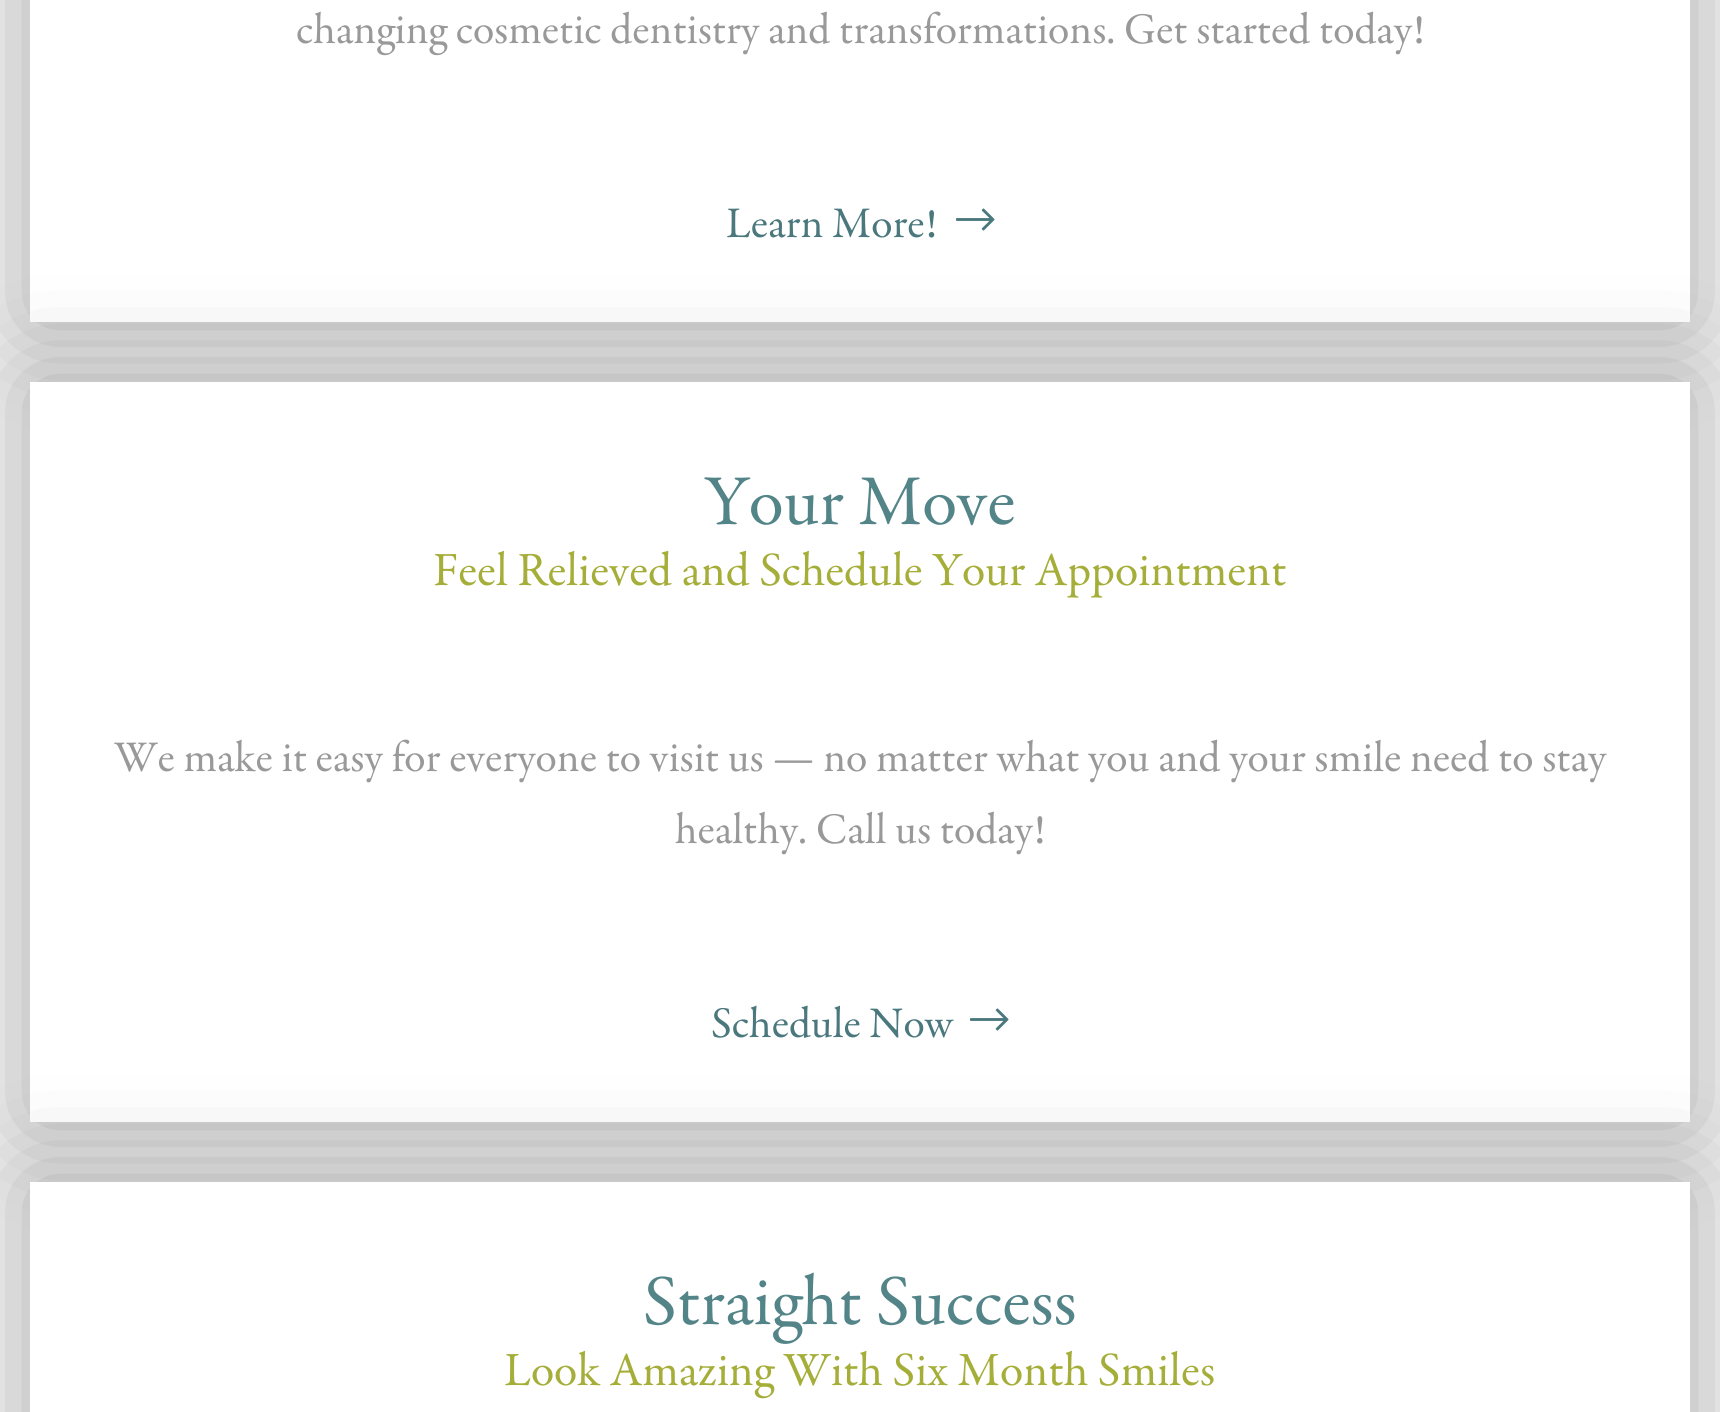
#include <cairo.h>
#include <math.h>
#include <stddef.h>


static void rgb(cairo_t *cr, int r, int g, int b)
{
	cairo_set_source_rgb(cr, r / 255.0, g / 255.0, b / 255.0);
}

static void face(cairo_t *cr, const char *family, double size, int italic, int bold)
{
	cairo_select_font_face(cr, family, italic ? CAIRO_FONT_SLANT_ITALIC : CAIRO_FONT_SLANT_NORMAL,
		bold ? CAIRO_FONT_WEIGHT_BOLD : CAIRO_FONT_WEIGHT_NORMAL);
	cairo_set_font_size(cr, size);
}

static void label(cairo_t *cr, double x, double y, const char *s)
{
	cairo_move_to(cr, x, y);
	cairo_show_text(cr, s);
}

static void rect(cairo_t *cr, double x, double y, double w, double h)
{
	cairo_rectangle(cr, x, y, w, h);
	cairo_fill(cr);
}

static void rrect(cairo_t *cr, double x, double y, double w, double h, double r)
{
	cairo_new_sub_path(cr);
	cairo_arc(cr, x + w - r, y + h - r, r, 0, M_PI / 2);
	cairo_arc(cr, x + r, y + h - r, r, M_PI / 2, M_PI);
	cairo_arc(cr, x + r, y + r, r, M_PI, 1.5 * M_PI);
	cairo_arc(cr, x + w - r, y + r, r, 1.5 * M_PI, 2 * M_PI);
	cairo_close_path(cr);
}

static void soft_shadow(cairo_t *cr, double x, double y, double w, double h, double r, double blur, double alpha)
{
	cairo_push_group_with_content(cr, CAIRO_CONTENT_ALPHA);
	cairo_set_operator(cr, CAIRO_OPERATOR_SOURCE);
	for (int i = 15; i >= -15 && fmin(w, h) + blur * i / 3 > 0; i -= 2) {
		double e = blur * i / 6;
		cairo_set_source_rgba(cr, 0, 0, 0, alpha * erfc((i - 1) / 8.5) / 2);
		rrect(cr, x - e, y - e, w + 2 * e, h + 2 * e, fmax(0, fmin(r + e + blur * .6, fmin(w, h) / 2 + e)));
		cairo_fill(cr);
	}
	cairo_pattern_t *soft = cairo_pop_group(cr);
	cairo_mask(cr, soft);
	cairo_pattern_destroy(soft);
}

static void image(cairo_t *cr, const char *path, double x, double y, double w, double h)
{
	cairo_surface_t *image = cairo_image_surface_create_from_png(path);
	cairo_save(cr);
	cairo_set_source_surface(cr, image, x, y);
	cairo_rectangle(cr, x, y, w, h);
	cairo_fill(cr);
	cairo_restore(cr);
	cairo_surface_destroy(image);
}

static void draw(cairo_t *cr) {
	rgb(cr, 244, 244, 244);
	cairo_paint(cr);
	rgb(cr, 0, 0, 0);
	soft_shadow(cr, 30, -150, 1660, 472, 0, 50, 0.3);
	rgb(cr, 255, 255, 255);
	rect(cr, 30, 0, 1660, 322);
	face(cr, "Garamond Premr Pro", 44, 0, 0);
	rgb(cr, 153, 153, 153);
	label(cr, 296, 43, "changing cosmetic dentistry and transformations. Get started today!");
	rgb(cr, 74, 120, 125);
	label(cr, 726, 237, "Learn More!");
	image(cr, "image0.png", 956, 208, 39, 23);
	rgb(cr, 0, 0, 0);
	soft_shadow(cr, 30, 382, 1660, 740, 0, 50, 0.3);
	rgb(cr, 255, 255, 255);
	rect(cr, 30, 382, 1660, 740);
	face(cr, "Garamond Premr Pro", 72, 0, 0);
	rgb(cr, 83, 132, 136);
	label(cr, 704, 524, "Your Move");
	face(cr, "Garamond Premr Pro", 48, 0, 0);
	rgb(cr, 165, 174, 57);
	label(cr, 433, 585, "Feel Relieved and Schedule Your Appointment");
	face(cr, "Garamond Premr Pro", 44, 0, 0);
	rgb(cr, 153, 153, 153);
	label(cr, 114, 771, "We make it easy for everyone to visit us — no matter what you and your smile need to stay");
	label(cr, 675, 843, "healthy. Call us today!");
	rgb(cr, 74, 120, 125);
	label(cr, 711, 1037, "Schedule Now");
	image(cr, "image0.png", 970, 1008, 39, 23);
	rgb(cr, 0, 0, 0);
	soft_shadow(cr, 30, 1182, 1660, 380, 0, 50, 0.3);
	rgb(cr, 255, 255, 255);
	rect(cr, 30, 1182, 1660, 230);
	face(cr, "Garamond Premr Pro", 72, 0, 0);
	rgb(cr, 83, 132, 136);
	label(cr, 643, 1324, "Straight Success");
	face(cr, "Garamond Premr Pro", 48, 0, 0);
	rgb(cr, 165, 174, 57);
	label(cr, 504, 1385, "Look Amazing With Six Month Smiles");
}

int main(void) {
	cairo_surface_t *surface = cairo_image_surface_create(CAIRO_FORMAT_RGB24, 1720, 1412);
	cairo_t *cr = cairo_create(surface);
	cairo_font_options_t *options = cairo_font_options_create();
	cairo_font_options_set_hint_metrics(options, CAIRO_HINT_METRICS_OFF);
	cairo_font_options_set_hint_style(options, CAIRO_HINT_STYLE_NONE);
	cairo_set_font_options(cr, options);
	cairo_set_miter_limit(cr, 4);
	draw(cr);
	cairo_surface_write_to_png(surface, "render.png");
	cairo_font_options_destroy(options);
	cairo_destroy(cr);
	cairo_surface_destroy(surface);
	return 0;
}
